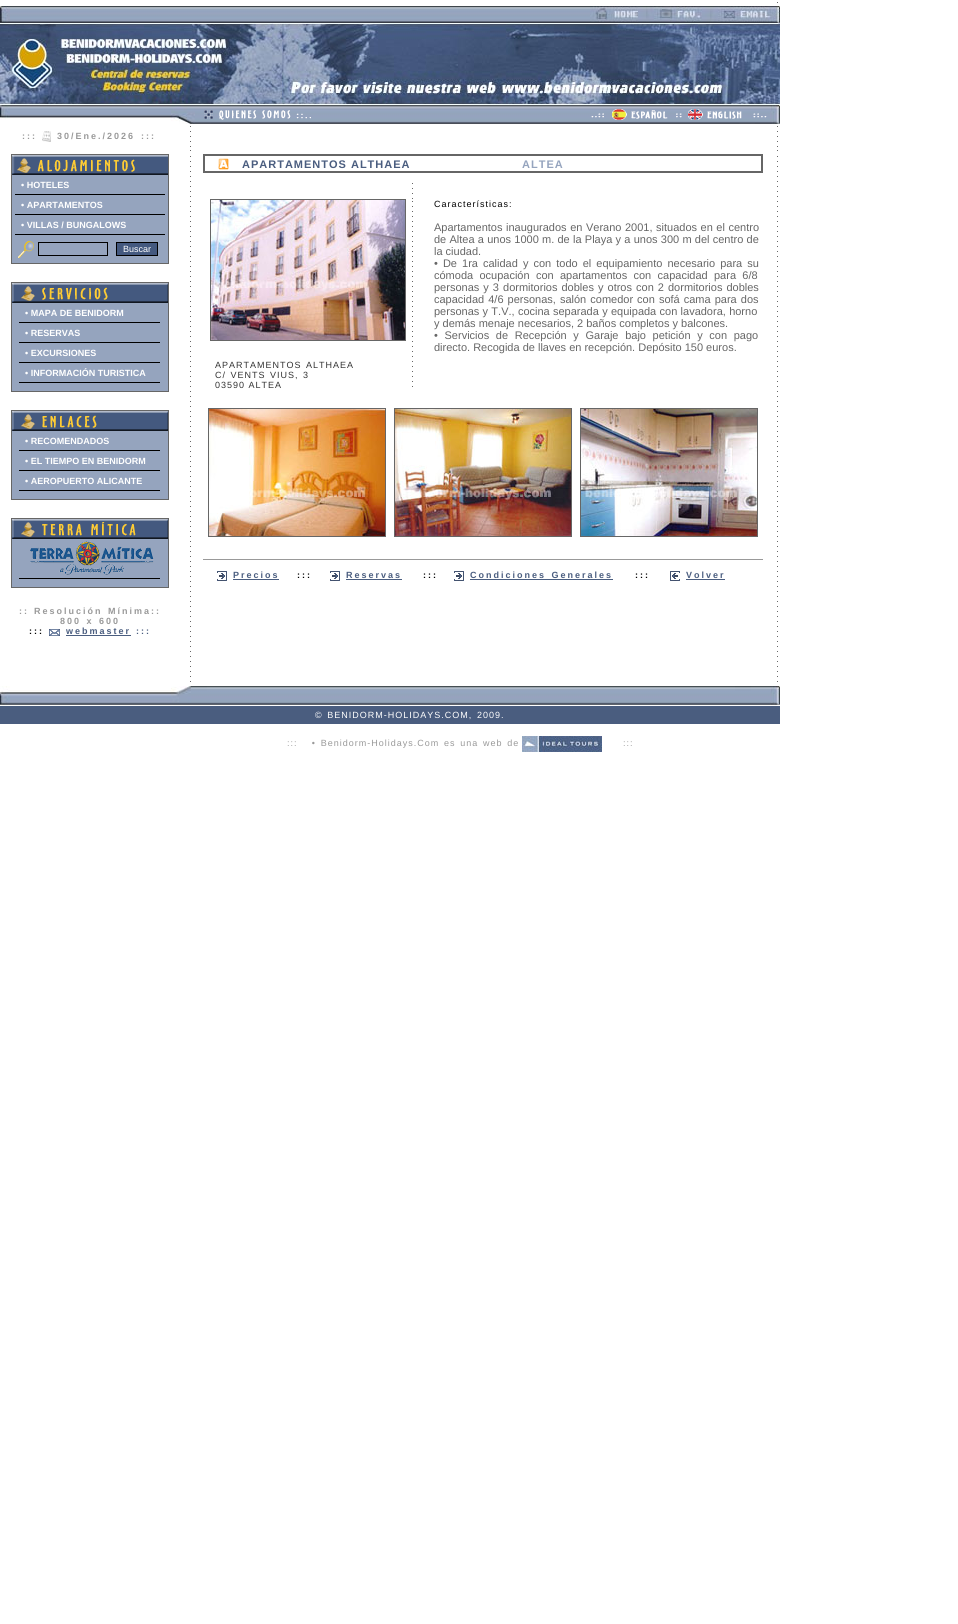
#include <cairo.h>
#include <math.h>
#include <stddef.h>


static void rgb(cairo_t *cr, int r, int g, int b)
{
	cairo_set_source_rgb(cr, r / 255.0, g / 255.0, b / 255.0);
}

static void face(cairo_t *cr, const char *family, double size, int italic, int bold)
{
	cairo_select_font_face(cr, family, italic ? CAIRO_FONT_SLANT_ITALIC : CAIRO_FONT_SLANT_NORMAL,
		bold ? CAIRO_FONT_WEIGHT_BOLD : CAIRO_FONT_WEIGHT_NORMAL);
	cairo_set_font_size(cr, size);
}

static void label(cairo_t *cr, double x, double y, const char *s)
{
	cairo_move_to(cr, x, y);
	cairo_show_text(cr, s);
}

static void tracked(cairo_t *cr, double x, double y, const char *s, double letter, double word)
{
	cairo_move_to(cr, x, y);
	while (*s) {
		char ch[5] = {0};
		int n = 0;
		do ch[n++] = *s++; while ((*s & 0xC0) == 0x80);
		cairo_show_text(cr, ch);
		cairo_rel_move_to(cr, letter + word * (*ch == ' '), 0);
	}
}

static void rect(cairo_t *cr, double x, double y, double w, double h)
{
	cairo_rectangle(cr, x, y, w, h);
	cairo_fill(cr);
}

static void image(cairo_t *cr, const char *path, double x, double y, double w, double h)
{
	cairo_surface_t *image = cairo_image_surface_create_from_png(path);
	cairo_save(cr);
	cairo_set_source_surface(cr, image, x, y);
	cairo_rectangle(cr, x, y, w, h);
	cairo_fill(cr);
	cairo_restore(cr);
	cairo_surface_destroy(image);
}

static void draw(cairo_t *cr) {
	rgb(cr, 255, 255, 255);
	cairo_paint(cr);
	rgb(cr, 102, 102, 102);
	rect(cr, 777, 2, 1, 1);
	image(cr, "image0.png", 0, 6, 10, 17);
	image(cr, "image1.png", 10, 6, 580, 17);
	image(cr, "image2.png", 590, 6, 190, 17);
	image(cr, "image3.png", 0, 23, 282, 82);
	image(cr, "image4.png", 282, 23, 498, 82);
	image(cr, "image5.png", 0, 105, 10, 15);
	image(cr, "image6.png", 10, 105, 161, 13);
	image(cr, "image7.png", 171, 105, 24, 19);
	image(cr, "image8.png", 195, 105, 575, 19);
	image(cr, "image9.png", 204, 110, 107, 10);
	image(cr, "image10.png", 591, 113, 13, 5);
	image(cr, "image11.png", 612, 109, 56, 11);
	image(cr, "image12.png", 676, 113, 6, 5);
	image(cr, "image13.png", 688, 109, 54, 11);
	image(cr, "image14.png", 753, 113, 14, 5);
	image(cr, "image15.png", 770, 105, 10, 19);
	face(cr, "Liberation Sans", 9, 0, 1);
	rgb(cr, 153, 153, 153);
	tracked(cr, 22, 139, ":::", 2, 0);
	image(cr, "image16.png", 42, 131, 9, 11);
	tracked(cr, 57, 139, "30/Ene./2026", 2, 0);
	tracked(cr, 141, 139, ":::", 2, 0);
	image(cr, "image17.png", 190, 126, 1, 21);
	image(cr, "image17.png", 777, 126, 1, 21);
	rgb(cr, 102, 102, 102);
	rect(cr, 190, 150, 1, 1);
	rect(cr, 777, 150, 1, 1);
	cairo_rectangle(cr, 11.5, 154.5, 157, 109);
	cairo_set_line_width(cr, 1);
	cairo_stroke(cr);
	image(cr, "image18.png", 12, 155, 3, 20);
	image(cr, "image19.png", 15, 155, 150, 20);
	image(cr, "image20.png", 17, 158, 118, 15);
	image(cr, "image21.png", 165, 155, 3, 20);
	rgb(cr, 149, 164, 190);
	rect(cr, 12, 175, 156, 88);
	rgb(cr, 0, 0, 0);
	rect(cr, 15, 194, 150, 1);
	rgb(cr, 255, 255, 255);
	label(cr, 21, 188, "• HOTELES");
	rgb(cr, 0, 0, 0);
	rect(cr, 15, 214, 150, 1);
	rgb(cr, 255, 255, 255);
	label(cr, 21, 208, "• APARTAMENTOS");
	rgb(cr, 0, 0, 0);
	rect(cr, 15, 234, 150, 1);
	rgb(cr, 255, 255, 255);
	label(cr, 21, 228, "• VILLAS / BUNGALOWS");
	image(cr, "image22.png", 18, 241, 16, 17);
	cairo_rectangle(cr, 38.5, 242.5, 69, 13);
	rgb(cr, 0, 0, 0);
	cairo_stroke(cr);
	rgb(cr, 68, 89, 127);
	cairo_rectangle(cr, 116.5, 242.5, 41, 13);
	cairo_fill_preserve(cr);
	rgb(cr, 0, 0, 0);
	cairo_stroke(cr);
	face(cr, "Liberation Sans", 9, 0, 0);
	rgb(cr, 255, 255, 255);
	label(cr, 123, 252, "Buscar");
	cairo_rectangle(cr, 11.5, 282.5, 157, 109);
	rgb(cr, 102, 102, 102);
	cairo_stroke(cr);
	image(cr, "image23.png", 12, 283, 7, 20);
	image(cr, "image24.png", 19, 283, 141, 20);
	image(cr, "image25.png", 21, 286, 87, 15);
	image(cr, "image26.png", 160, 283, 8, 20);
	rgb(cr, 149, 164, 190);
	rect(cr, 12, 303, 156, 88);
	rgb(cr, 0, 0, 0);
	rect(cr, 19, 322, 141, 1);
	face(cr, "Liberation Sans", 9, 0, 1);
	rgb(cr, 255, 255, 255);
	label(cr, 25, 316, "• MAPA DE BENIDORM");
	rgb(cr, 0, 0, 0);
	rect(cr, 19, 342, 141, 1);
	rgb(cr, 255, 255, 255);
	label(cr, 25, 336, "• RESERVAS");
	rgb(cr, 0, 0, 0);
	rect(cr, 19, 362, 141, 1);
	rgb(cr, 255, 255, 255);
	label(cr, 25, 356, "• EXCURSIONES");
	rgb(cr, 0, 0, 0);
	rect(cr, 19, 382, 141, 1);
	rgb(cr, 255, 255, 255);
	label(cr, 25, 376, "• INFORMACIÓN TURISTICA");
	cairo_rectangle(cr, 11.5, 410.5, 157, 89);
	rgb(cr, 102, 102, 102);
	cairo_stroke(cr);
	image(cr, "image23.png", 12, 411, 7, 20);
	image(cr, "image24.png", 19, 411, 141, 20);
	image(cr, "image27.png", 21, 414, 76, 15);
	image(cr, "image26.png", 160, 411, 8, 20);
	rgb(cr, 149, 164, 190);
	rect(cr, 12, 431, 156, 68);
	rgb(cr, 0, 0, 0);
	rect(cr, 19, 450, 141, 1);
	rgb(cr, 255, 255, 255);
	label(cr, 25, 444, "• RECOMENDADOS");
	rgb(cr, 0, 0, 0);
	rect(cr, 19, 470, 141, 1);
	rgb(cr, 255, 255, 255);
	label(cr, 25, 464, "• EL TIEMPO EN BENIDORM");
	rgb(cr, 0, 0, 0);
	rect(cr, 19, 490, 141, 1);
	rgb(cr, 255, 255, 255);
	label(cr, 25, 484, "• AEROPUERTO ALICANTE");
	cairo_rectangle(cr, 11.5, 518.5, 157, 69);
	rgb(cr, 102, 102, 102);
	cairo_stroke(cr);
	image(cr, "image23.png", 12, 519, 7, 20);
	image(cr, "image24.png", 19, 519, 141, 20);
	image(cr, "image28.png", 21, 522, 115, 15);
	image(cr, "image26.png", 160, 519, 8, 20);
	rgb(cr, 149, 164, 190);
	rect(cr, 12, 539, 156, 48);
	rgb(cr, 0, 0, 0);
	rect(cr, 19, 578, 141, 1);
	image(cr, "image29.png", 30, 541, 124, 34);
	rgb(cr, 153, 153, 153);
	tracked(cr, 19, 614, "::", 2, 0);
	tracked(cr, 34, 614, "Resolución Mínima::", 2, 1);
	tracked(cr, 60, 624, "800 x 600", 2, 1);
	rgb(cr, 0, 0, 0);
	tracked(cr, 29, 634, ":::", 2, 0);
	image(cr, "image30.png", 49, 629, 11, 7);
	rgb(cr, 74, 93, 127);
	tracked(cr, 66, 634, "webmaster", 2, 0);
	rect(cr, 66, 635, 65, 1);
	tracked(cr, 136, 634, ":::", 2, 0);
	image(cr, "image31.png", 190, 156, 1, 526);
	cairo_rectangle(cr, 203.5, 154.5, 559, 18);
	rgb(cr, 102, 102, 102);
	cairo_stroke(cr);
	cairo_rectangle(cr, 204.5, 155.5, 557, 16);
	cairo_stroke(cr);
	image(cr, "image32.png", 218, 158, 11, 12);
	face(cr, "Liberation Sans", 11, 0, 1);
	rgb(cr, 74, 93, 127);
	tracked(cr, 242, 168, "APARTAMENTOS ALTHAEA", 1, 0);
	rgb(cr, 149, 164, 190);
	tracked(cr, 522, 168, "ALTEA", 1, 0);
	image(cr, "image33.png", 412, 183, 1, 16);
	cairo_rectangle(cr, 210.5, 199.5, 195, 141);
	rgb(cr, 102, 102, 102);
	cairo_stroke(cr);
	image(cr, "image34.png", 211, 200, 194, 140);
	face(cr, "Liberation Sans", 9, 0, 0);
	rgb(cr, 51, 51, 51);
	tracked(cr, 215, 368, "APARTAMENTOS ALTHAEA", 1, 1);
	tracked(cr, 215, 378, "C/ VENTS VIUS, 3", 1, 1);
	tracked(cr, 215, 388, "03590 ALTEA", 1, 0);
	image(cr, "image35.png", 412, 201, 1, 186);
	rgb(cr, 0, 0, 0);
	tracked(cr, 434, 207, "Características:", 1, 0);
	face(cr, "Liberation Sans", 11, 0, 0);
	rgb(cr, 102, 102, 102);
	tracked(cr, 434, 231, "Apartamentos inaugurados en Verano 2001, situados en el centro", 0, 0.5);
	tracked(cr, 434, 243, "de Altea a unos 1000 m. de la Playa y a unos 300 m del centro de", 0, 0.2);
	label(cr, 434, 255, "la ciudad.");
	tracked(cr, 434, 267, "• De 1ra calidad y con todo el equipamiento necesario para su", 0, 2);
	tracked(cr, 434, 279, "cómoda ocupación con apartamentos con capacidad para 6/8", 0, 3.25);
	tracked(cr, 434, 291, "personas y 3 dormitorios dobles y otros con 2 dormitorios dobles", 0, 1);
	tracked(cr, 434, 303, "capacidad 4/6 personas, salón comedor con sofá cama para dos", 0, 1);
	tracked(cr, 434, 315, "personas y T.V., cocina separada y equipada con lavadora, horno", 0, 0.25);
	label(cr, 434, 327, "y demás menaje necesarios, 2 baños completos y balcones.");
	tracked(cr, 434, 339, "• Servicios de Recepción y Garaje bajo petición y con pago", 0, 3.6);
	label(cr, 434, 351, "directo. Recogida de llaves en recepción. Depósito 150 euros.");
	cairo_rectangle(cr, 208.5, 408.5, 177, 128);
	cairo_stroke(cr);
	cairo_rectangle(cr, 394.5, 408.5, 177, 128);
	cairo_stroke(cr);
	cairo_rectangle(cr, 580.5, 408.5, 177, 128);
	cairo_stroke(cr);
	image(cr, "image36.png", 209, 409, 176, 127);
	image(cr, "image37.png", 395, 409, 176, 127);
	image(cr, "image38.png", 581, 409, 176, 127);
	rgb(cr, 153, 153, 153);
	rect(cr, 203, 559, 560, 1);
	image(cr, "image39.png", 217, 571, 10, 10);
	face(cr, "Liberation Sans", 9, 0, 1);
	rgb(cr, 74, 93, 127);
	tracked(cr, 233, 578, "Precios", 2, 0);
	rect(cr, 233, 579, 46, 1);
	rgb(cr, 0, 0, 0);
	tracked(cr, 297, 578, ":::", 2, 0);
	image(cr, "image39.png", 330, 571, 10, 10);
	rgb(cr, 74, 93, 127);
	tracked(cr, 346, 578, "Reservas", 2, 0);
	rect(cr, 346, 579, 56, 1);
	rgb(cr, 0, 0, 0);
	tracked(cr, 423, 578, ":::", 2, 0);
	image(cr, "image39.png", 454, 571, 10, 10);
	rgb(cr, 74, 93, 127);
	tracked(cr, 470, 578, "Condiciones Generales", 2, 1);
	rect(cr, 470, 579, 143, 1);
	rgb(cr, 0, 0, 0);
	tracked(cr, 635, 578, ":::", 2, 0);
	image(cr, "image40.png", 670, 571, 10, 10);
	rgb(cr, 74, 93, 127);
	tracked(cr, 686, 578, "Volver", 2, 0);
	rect(cr, 686, 579, 39, 1);
	image(cr, "image31.png", 777, 156, 1, 526);
	image(cr, "image41.png", 0, 686, 10, 19);
	image(cr, "image42.png", 10, 690, 161, 15);
	image(cr, "image43.png", 171, 686, 20, 19);
	image(cr, "image44.png", 191, 686, 579, 19);
	image(cr, "image45.png", 770, 686, 10, 19);
	rect(cr, 0, 706, 780, 18);
	face(cr, "Liberation Sans", 9, 0, 0);
	rgb(cr, 255, 255, 255);
	tracked(cr, 315, 718, "© BENIDORM-HOLIDAYS.COM,", 1, 1);
	tracked(cr, 477, 718, "2009.", 1, 0);
	rgb(cr, 153, 153, 153);
	tracked(cr, 287, 746, ":::   • Benidorm-Holidays.Com es una web de", 1, 1.25);
	image(cr, "image46.png", 522, 736, 80, 16);
	tracked(cr, 623, 746, ":::", 1, 0);
}

int main(void) {
	cairo_surface_t *surface = cairo_image_surface_create(CAIRO_FORMAT_RGB24, 958, 1624);
	cairo_t *cr = cairo_create(surface);
	cairo_font_options_t *options = cairo_font_options_create();
	cairo_font_options_set_hint_metrics(options, CAIRO_HINT_METRICS_OFF);
	cairo_font_options_set_hint_style(options, CAIRO_HINT_STYLE_NONE);
	cairo_set_font_options(cr, options);
	cairo_set_miter_limit(cr, 4);
	draw(cr);
	cairo_surface_write_to_png(surface, "render.png");
	cairo_font_options_destroy(options);
	cairo_destroy(cr);
	cairo_surface_destroy(surface);
	return 0;
}
